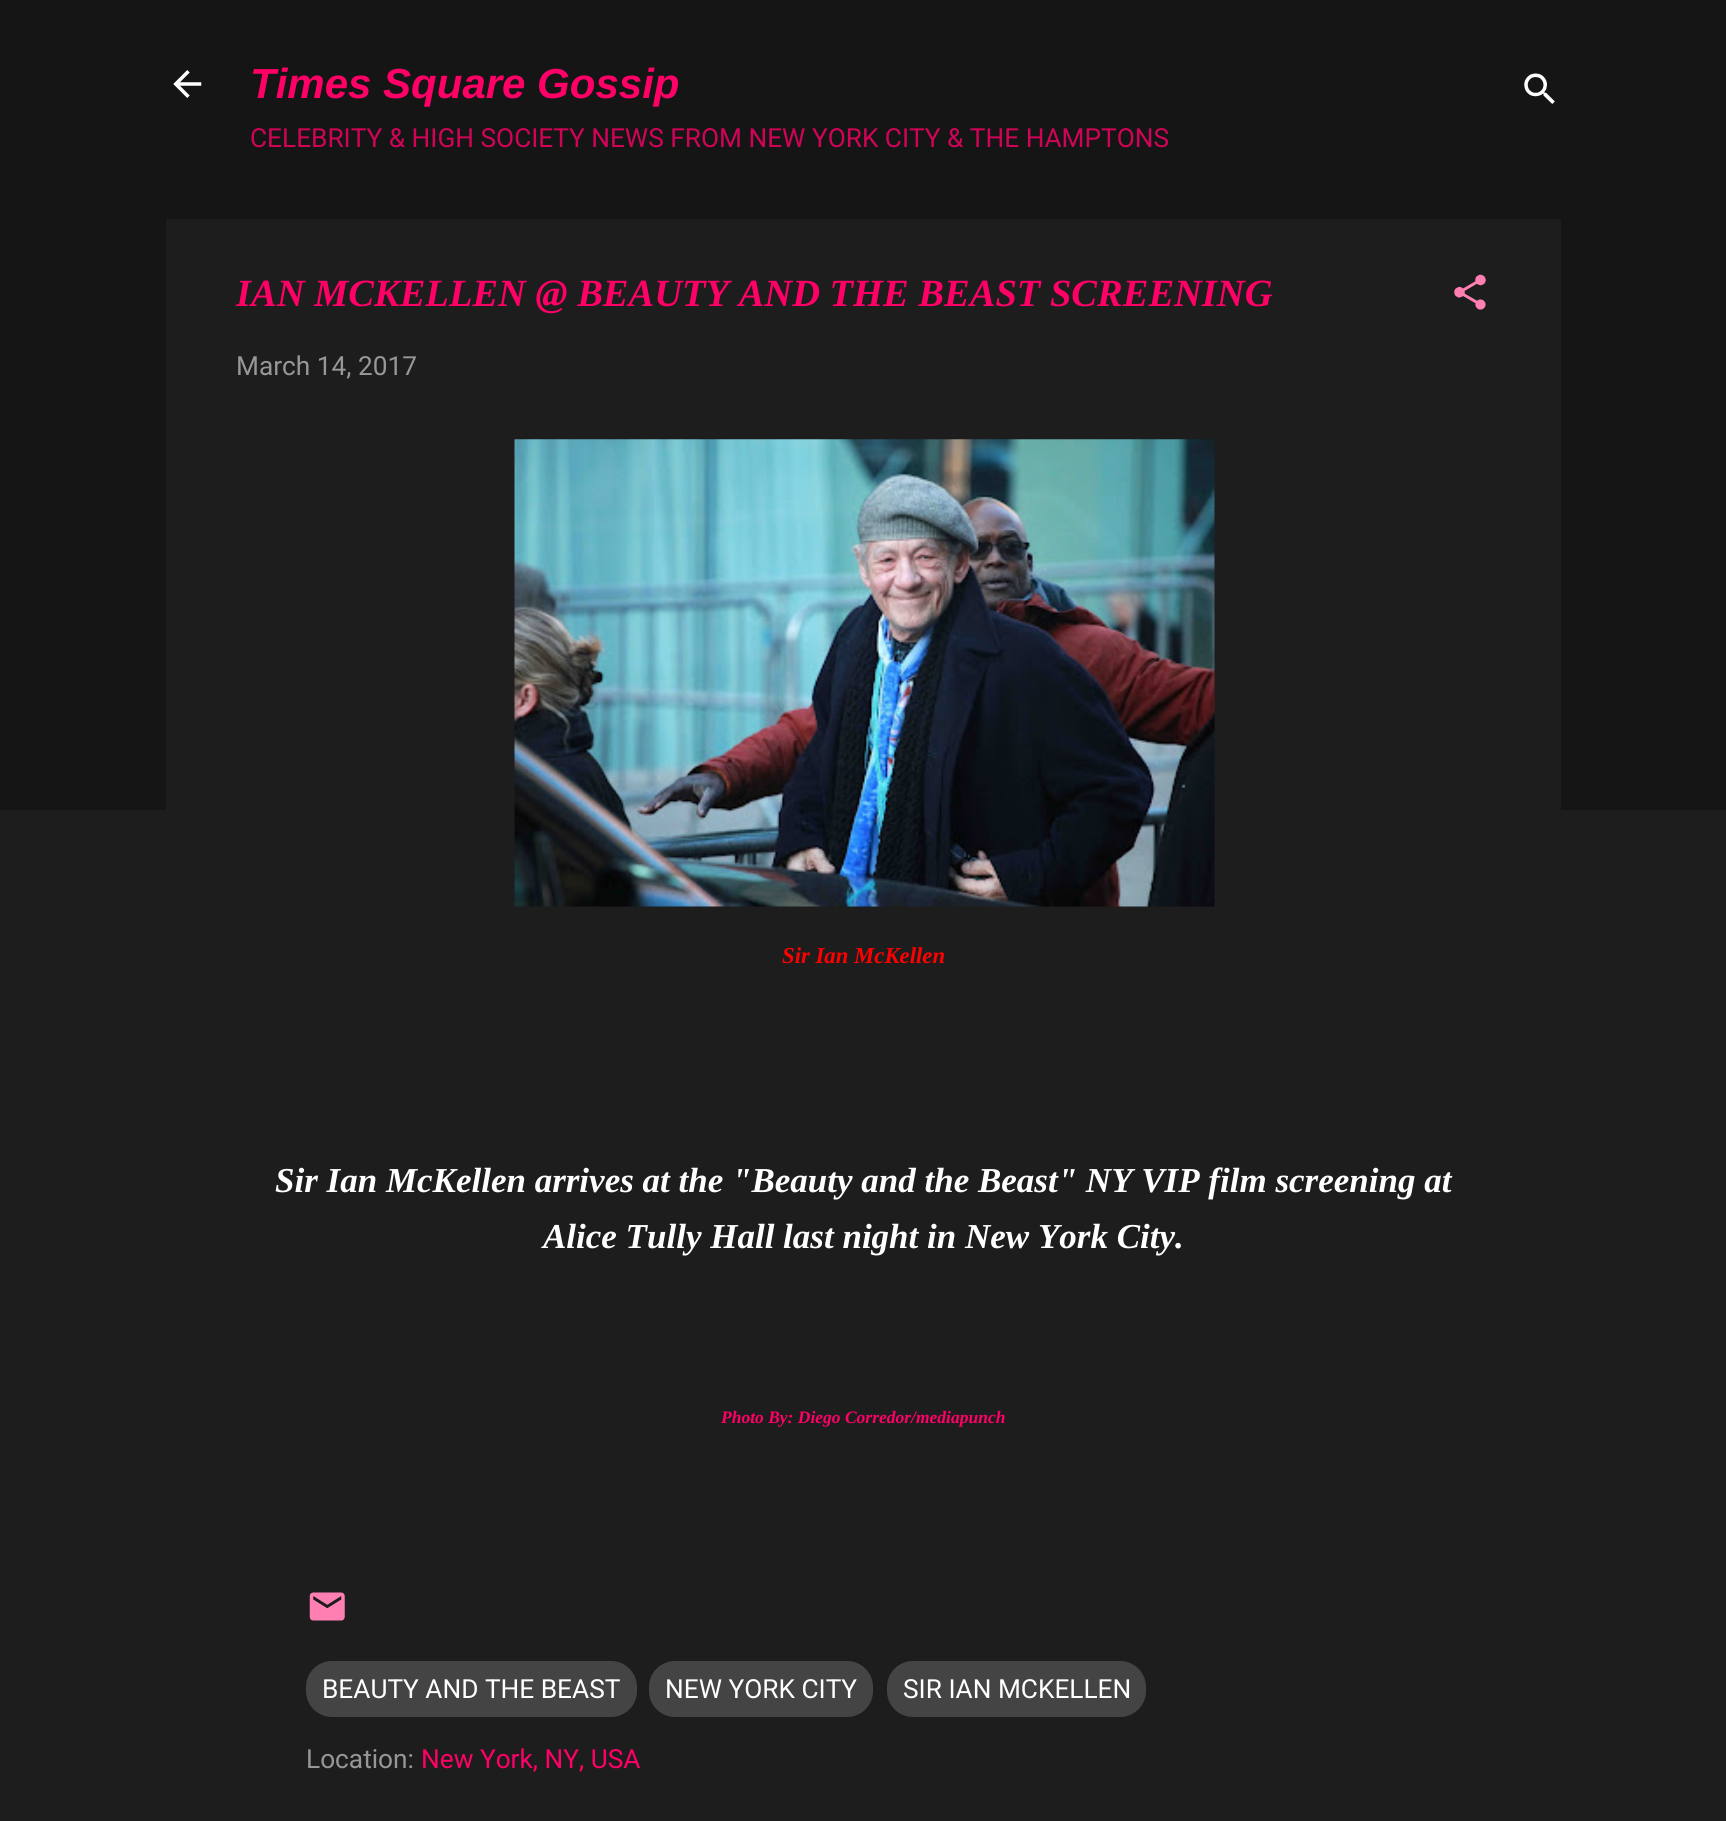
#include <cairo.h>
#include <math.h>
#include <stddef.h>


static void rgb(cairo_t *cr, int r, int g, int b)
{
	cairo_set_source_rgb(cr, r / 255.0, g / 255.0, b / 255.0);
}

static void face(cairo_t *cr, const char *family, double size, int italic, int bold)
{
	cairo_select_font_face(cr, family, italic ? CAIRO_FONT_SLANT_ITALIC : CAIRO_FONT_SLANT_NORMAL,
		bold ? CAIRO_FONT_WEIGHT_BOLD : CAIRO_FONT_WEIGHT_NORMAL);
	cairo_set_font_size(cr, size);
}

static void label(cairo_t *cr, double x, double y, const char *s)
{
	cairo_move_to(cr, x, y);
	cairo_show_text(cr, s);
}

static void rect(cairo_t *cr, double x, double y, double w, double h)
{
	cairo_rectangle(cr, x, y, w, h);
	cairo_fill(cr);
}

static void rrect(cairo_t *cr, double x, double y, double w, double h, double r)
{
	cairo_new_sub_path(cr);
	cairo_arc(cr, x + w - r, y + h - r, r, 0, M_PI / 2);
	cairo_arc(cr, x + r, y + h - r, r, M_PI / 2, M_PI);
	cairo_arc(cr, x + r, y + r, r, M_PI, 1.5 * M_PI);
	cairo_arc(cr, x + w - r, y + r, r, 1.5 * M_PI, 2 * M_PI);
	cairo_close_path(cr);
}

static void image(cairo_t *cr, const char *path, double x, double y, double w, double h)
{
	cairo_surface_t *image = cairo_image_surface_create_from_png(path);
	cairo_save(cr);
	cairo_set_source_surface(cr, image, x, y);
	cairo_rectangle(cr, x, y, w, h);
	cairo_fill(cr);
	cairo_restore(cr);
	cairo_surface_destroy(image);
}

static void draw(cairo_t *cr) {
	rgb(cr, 29, 29, 29);
	cairo_paint(cr);
	rgb(cr, 21, 21, 21);
	rect(cr, 0, 0, 1726, 810);
	image(cr, "image0.png", 173, 70, 29, 28);
	face(cr, "Liberation Sans", 42, 1, 1);
	rgb(cr, 255, 0, 103);
	label(cr, 250, 98, "Times Square Gossip");
	face(cr, "Roboto", 26.25, 0, 0);
	rgb(cr, 208, 4, 87);
	label(cr, 250, 147, "CELEBRITY & HIGH SOCIETY NEWS FROM NEW YORK CITY & THE HAMPTONS");
	image(cr, "image1.png", 1524, 73, 31, 31);
	rgb(cr, 29, 29, 29);
	rect(cr, 166, 219, 1395, 591);
	face(cr, "Liberation Serif", 38.5, 1, 1);
	rgb(cr, 255, 0, 103);
	label(cr, 236, 306, "IAN MCKELLEN @ BEAUTY AND THE BEAST SCREENING");
	image(cr, "image2.png", 1454, 274, 32, 36);
	face(cr, "Roboto", 26.25, 0, 0);
	rgb(cr, 151, 151, 151);
	label(cr, 236, 375, "March 14, 2017");
	image(cr, "image3.png", 514, 439, 701, 468);
	face(cr, "Liberation Serif", 22.75, 1, 1);
	rgb(cr, 255, 0, 0);
	label(cr, 782, 963, "Sir Ian McKellen");
	face(cr, "Liberation Serif", 35, 1, 1);
	rgb(cr, 255, 255, 255);
	label(cr, 275, 1192, "Sir Ian McKellen arrives at the \"Beauty and the Beast\" NY VIP film screening at");
	label(cr, 543, 1248, "Alice Tully Hall last night in New York City.");
	face(cr, "Liberation Serif", 17.5, 1, 1);
	rgb(cr, 255, 0, 103);
	label(cr, 721, 1423, "Photo By: Diego Corredor/mediapunch");
	image(cr, "image4.png", 309, 1592, 36, 29);
	rgb(cr, 68, 68, 68);
	rrect(cr, 307, 1662, 329, 54, 25);
	cairo_fill_preserve(cr);
	cairo_stroke(cr);
	face(cr, "Roboto", 26.25, 0, 0);
	rgb(cr, 255, 255, 255);
	label(cr, 322, 1698, "BEAUTY AND THE BEAST");
	rgb(cr, 68, 68, 68);
	rrect(cr, 650, 1662, 222, 54, 25);
	cairo_fill_preserve(cr);
	cairo_stroke(cr);
	rgb(cr, 255, 255, 255);
	label(cr, 665, 1698, "NEW YORK CITY");
	rgb(cr, 68, 68, 68);
	rrect(cr, 888, 1662, 257, 54, 25);
	cairo_fill_preserve(cr);
	cairo_stroke(cr);
	rgb(cr, 255, 255, 255);
	label(cr, 903, 1698, "SIR IAN MCKELLEN");
	rgb(cr, 151, 151, 151);
	label(cr, 306, 1768, "Location:");
	rgb(cr, 255, 0, 103);
	label(cr, 421, 1768, "New York, NY, USA");
}

int main(void) {
	cairo_surface_t *surface = cairo_image_surface_create(CAIRO_FORMAT_RGB24, 1726, 1821);
	cairo_t *cr = cairo_create(surface);
	cairo_font_options_t *options = cairo_font_options_create();
	cairo_font_options_set_hint_metrics(options, CAIRO_HINT_METRICS_OFF);
	cairo_font_options_set_hint_style(options, CAIRO_HINT_STYLE_NONE);
	cairo_set_font_options(cr, options);
	cairo_set_miter_limit(cr, 4);
	draw(cr);
	cairo_surface_write_to_png(surface, "render.png");
	cairo_font_options_destroy(options);
	cairo_destroy(cr);
	cairo_surface_destroy(surface);
	return 0;
}
